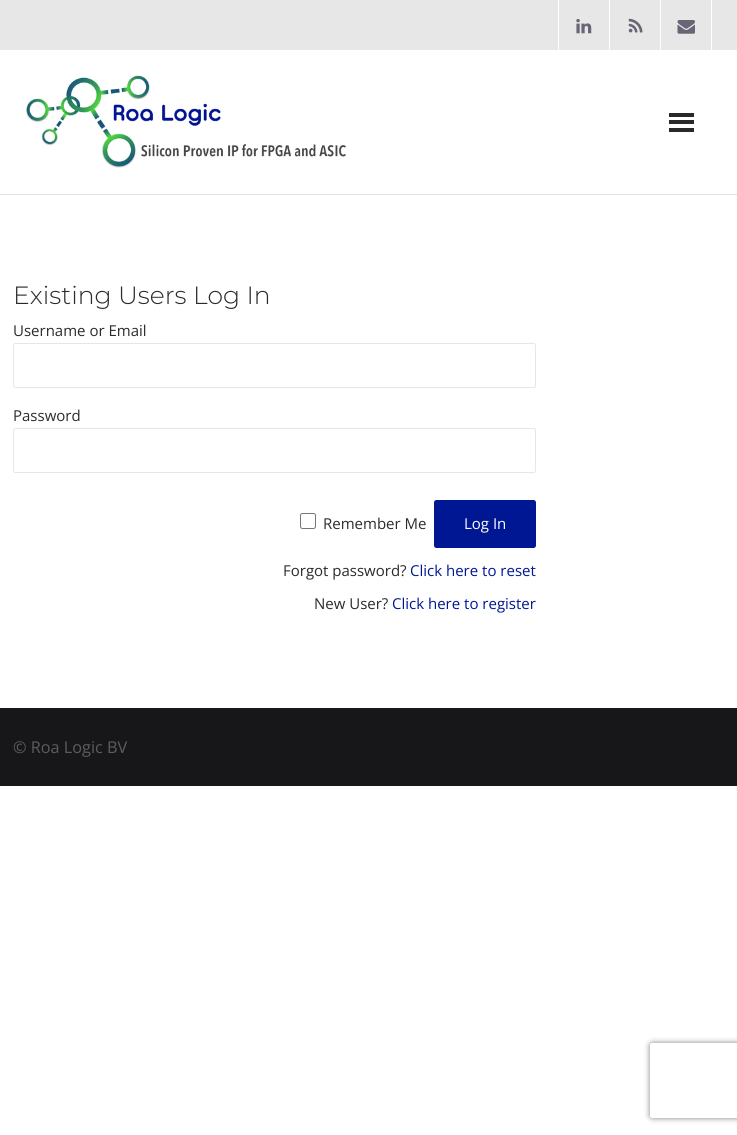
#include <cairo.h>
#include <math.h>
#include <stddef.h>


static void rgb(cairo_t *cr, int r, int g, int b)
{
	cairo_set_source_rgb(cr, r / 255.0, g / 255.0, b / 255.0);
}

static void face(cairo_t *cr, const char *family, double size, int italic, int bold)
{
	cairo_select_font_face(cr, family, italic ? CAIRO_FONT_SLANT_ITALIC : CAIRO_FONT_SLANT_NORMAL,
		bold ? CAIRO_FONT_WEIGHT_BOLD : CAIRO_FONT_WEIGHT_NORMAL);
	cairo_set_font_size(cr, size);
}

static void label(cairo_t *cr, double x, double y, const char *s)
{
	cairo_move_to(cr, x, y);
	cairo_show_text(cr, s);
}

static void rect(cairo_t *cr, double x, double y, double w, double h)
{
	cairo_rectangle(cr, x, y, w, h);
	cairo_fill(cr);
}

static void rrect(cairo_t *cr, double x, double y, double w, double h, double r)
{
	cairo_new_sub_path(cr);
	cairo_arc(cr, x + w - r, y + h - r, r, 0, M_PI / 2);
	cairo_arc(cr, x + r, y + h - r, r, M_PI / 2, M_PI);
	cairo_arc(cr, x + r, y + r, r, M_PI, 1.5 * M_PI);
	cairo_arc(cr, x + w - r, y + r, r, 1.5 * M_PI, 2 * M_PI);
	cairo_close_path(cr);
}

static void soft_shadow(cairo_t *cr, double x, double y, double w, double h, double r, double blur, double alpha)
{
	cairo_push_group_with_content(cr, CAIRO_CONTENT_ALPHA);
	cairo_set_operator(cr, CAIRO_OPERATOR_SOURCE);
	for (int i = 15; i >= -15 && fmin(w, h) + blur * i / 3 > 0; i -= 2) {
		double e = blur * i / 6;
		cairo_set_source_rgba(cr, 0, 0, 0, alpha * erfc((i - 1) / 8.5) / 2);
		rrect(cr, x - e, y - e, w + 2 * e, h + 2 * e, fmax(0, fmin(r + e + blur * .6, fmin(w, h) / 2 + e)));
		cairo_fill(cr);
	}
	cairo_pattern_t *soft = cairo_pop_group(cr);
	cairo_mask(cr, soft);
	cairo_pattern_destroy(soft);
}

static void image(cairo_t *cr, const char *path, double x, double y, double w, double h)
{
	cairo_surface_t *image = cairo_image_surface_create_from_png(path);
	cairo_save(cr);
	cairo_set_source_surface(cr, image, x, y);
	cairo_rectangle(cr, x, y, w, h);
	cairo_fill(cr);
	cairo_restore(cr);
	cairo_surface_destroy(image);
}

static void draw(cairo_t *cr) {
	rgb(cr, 255, 255, 255);
	cairo_paint(cr);
	rgb(cr, 231, 231, 231);
	rect(cr, 0, 0, 737, 50);
	rgb(cr, 255, 255, 255);
	rect(cr, 558, 0, 1, 50);
	image(cr, "image0.png", 576, 19, 16, 15);
	rect(cr, 609, 0, 1, 50);
	image(cr, "image1.png", 628, 18, 15, 15);
	rect(cr, 711, 0, 1, 50);
	rect(cr, 660, 0, 1, 50);
	image(cr, "image2.png", 677, 20, 18, 14);
	rgb(cr, 227, 227, 227);
	rect(cr, 0, 194, 737, 1);
	image(cr, "image3.png", 26, 75, 321, 93);
	rgb(cr, 41, 41, 41);
	rect(cr, 669, 113, 25, 4);
	rect(cr, 669, 120, 25, 4);
	rect(cr, 669, 128, 25, 4);
	face(cr, "Montserrat Light", 25, 0, 0);
	rgb(cr, 43, 43, 43);
	label(cr, 13, 304, "Existing Users Log In");
	face(cr, "Open Sans", 15, 0, 0);
	label(cr, 13, 336, "Username or Email");
	rrect(cr, 13.5, 343.5, 522, 44, 2);
	rgb(cr, 230, 230, 230);
	cairo_set_line_width(cr, 1);
	cairo_stroke(cr);
	rgb(cr, 43, 43, 43);
	label(cr, 13, 421, "Password");
	rrect(cr, 13.5, 428.5, 522, 44, 2);
	rgb(cr, 230, 230, 230);
	cairo_stroke(cr);
	rrect(cr, 300.5, 513.5, 15, 15, 2);
	rgb(cr, 118, 118, 118);
	cairo_stroke(cr);
	rgb(cr, 43, 43, 43);
	label(cr, 323, 529, "Remember Me");
	rgb(cr, 0, 23, 147);
	rrect(cr, 434, 500, 102, 48, 2.5);
	cairo_fill(cr);
	rgb(cr, 255, 255, 255);
	label(cr, 464, 529, "Log In");
	rgb(cr, 43, 43, 43);
	label(cr, 283, 576, "Forgot password?");
	rgb(cr, 0, 23, 147);
	label(cr, 410, 576, "Click here to reset");
	rgb(cr, 43, 43, 43);
	label(cr, 314, 609, "New User?");
	rgb(cr, 0, 23, 147);
	label(cr, 392, 609, "Click here to register");
	rgb(cr, 23, 23, 25);
	rect(cr, 0, 708, 737, 78);
	face(cr, "Open Sans", 16.25, 0, 0);
	rgb(cr, 92, 92, 92);
	label(cr, 13, 753, "© Roa Logic BV");
	cairo_save(cr);
	cairo_set_fill_rule(cr, CAIRO_FILL_RULE_EVEN_ODD);
	cairo_new_path(cr);
	cairo_move_to(cr, 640, 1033);
	cairo_line_to(cr, 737, 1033);
	cairo_line_to(cr, 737, 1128);
	cairo_line_to(cr, 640, 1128);
	cairo_close_path(cr);
	cairo_move_to(cr, 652.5, 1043);
	cairo_line_to(cr, 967.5, 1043);
	cairo_curve_to(cr, 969, 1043, 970, 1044, 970, 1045.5);
	cairo_line_to(cr, 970, 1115.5);
	cairo_curve_to(cr, 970, 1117, 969, 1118, 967.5, 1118);
	cairo_line_to(cr, 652.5, 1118);
	cairo_curve_to(cr, 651, 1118, 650, 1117, 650, 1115.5);
	cairo_line_to(cr, 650, 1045.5);
	cairo_curve_to(cr, 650, 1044, 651, 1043, 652.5, 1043);
	cairo_close_path(cr);
	cairo_clip(cr);
	rgb(cr, 128, 128, 128);
	soft_shadow(cr, 650, 1043, 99, 75, 2.5, 3, 1);
	cairo_restore(cr);
}

int main(void) {
	cairo_surface_t *surface = cairo_image_surface_create(CAIRO_FORMAT_RGB24, 737, 1135);
	cairo_t *cr = cairo_create(surface);
	cairo_font_options_t *options = cairo_font_options_create();
	cairo_font_options_set_hint_metrics(options, CAIRO_HINT_METRICS_OFF);
	cairo_font_options_set_hint_style(options, CAIRO_HINT_STYLE_NONE);
	cairo_set_font_options(cr, options);
	cairo_set_miter_limit(cr, 4);
	draw(cr);
	cairo_surface_write_to_png(surface, "render.png");
	cairo_font_options_destroy(options);
	cairo_destroy(cr);
	cairo_surface_destroy(surface);
	return 0;
}
